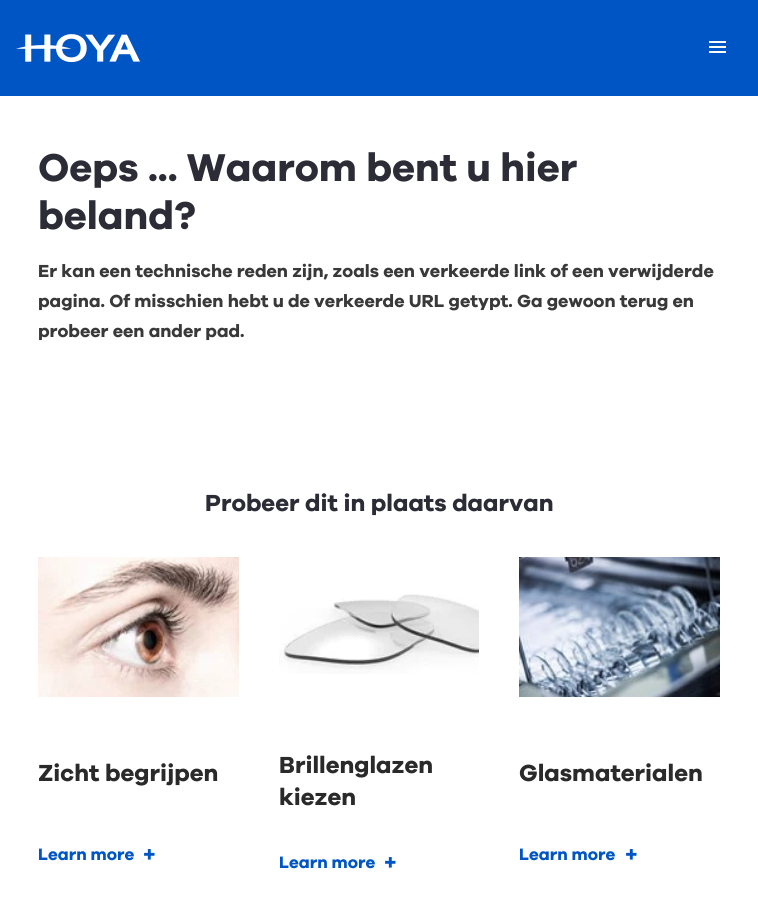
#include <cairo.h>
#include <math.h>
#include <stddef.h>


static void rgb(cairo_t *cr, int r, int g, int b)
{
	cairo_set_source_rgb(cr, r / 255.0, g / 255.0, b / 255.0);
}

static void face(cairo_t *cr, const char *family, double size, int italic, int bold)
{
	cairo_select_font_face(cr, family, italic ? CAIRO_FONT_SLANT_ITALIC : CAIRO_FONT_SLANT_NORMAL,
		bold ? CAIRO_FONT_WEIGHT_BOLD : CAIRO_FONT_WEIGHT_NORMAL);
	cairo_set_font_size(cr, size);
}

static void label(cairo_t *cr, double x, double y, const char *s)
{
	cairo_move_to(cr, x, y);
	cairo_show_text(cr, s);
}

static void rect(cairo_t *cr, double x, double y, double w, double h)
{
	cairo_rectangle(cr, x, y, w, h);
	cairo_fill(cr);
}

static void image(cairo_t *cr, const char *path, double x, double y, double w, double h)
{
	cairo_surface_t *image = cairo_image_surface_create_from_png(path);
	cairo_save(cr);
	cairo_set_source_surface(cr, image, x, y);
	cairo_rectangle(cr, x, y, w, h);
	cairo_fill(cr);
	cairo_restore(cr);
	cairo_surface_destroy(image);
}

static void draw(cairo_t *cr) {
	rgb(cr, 255, 255, 255);
	cairo_paint(cr);
	rgb(cr, 0, 85, 196);
	rect(cr, 0, 0, 758, 96);
	image(cr, "image0.png", 16, 34, 124, 28);
	rgb(cr, 255, 255, 255);
	rect(cr, 709, 46, 17, 2);
	rect(cr, 709, 41, 17, 2);
	rect(cr, 709, 51, 17, 2);
	face(cr, "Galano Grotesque", 40, 0, 1);
	rgb(cr, 44, 44, 55);
	label(cr, 38, 181, "Oeps ... Waarom bent u hier");
	label(cr, 38, 229, "beland?");
	face(cr, "Galano Grotesque", 18, 0, 1);
	rgb(cr, 57, 57, 57);
	label(cr, 38, 277, "Er kan een technische reden zijn, zoals een verkeerde link of een verwijderde");
	label(cr, 38, 307, "pagina. Of misschien hebt u de verkeerde URL getypt. Ga gewoon terug en");
	label(cr, 38, 337, "probeer een ander pad.");
	face(cr, "Galano Grotesque", 24, 0, 1);
	rgb(cr, 44, 44, 55);
	label(cr, 205, 511, "Probeer dit in plaats daarvan");
	image(cr, "image1.png", 38, 557, 201, 140);
	rgb(cr, 42, 42, 42);
	label(cr, 38, 781, "Zicht begrijpen");
	face(cr, "Galano Grotesque", 17, 0, 1);
	rgb(cr, 0, 85, 196);
	label(cr, 38, 860, "Learn more");
	face(cr, "Galano Grotesque", 22, 0, 1);
	label(cr, 143, 861, "+");
	image(cr, "image2.png", 279, 594, 200, 80);
	face(cr, "Galano Grotesque", 24, 0, 1);
	rgb(cr, 42, 42, 42);
	label(cr, 279, 773, "Brillenglazen");
	label(cr, 279, 805, "kiezen");
	face(cr, "Galano Grotesque", 17, 0, 1);
	rgb(cr, 0, 85, 196);
	label(cr, 279, 868, "Learn more");
	face(cr, "Galano Grotesque", 22, 0, 1);
	label(cr, 384, 869, "+");
	image(cr, "image3.png", 519, 557, 201, 140);
	face(cr, "Galano Grotesque", 24, 0, 1);
	rgb(cr, 42, 42, 42);
	label(cr, 519, 781, "Glasmaterialen");
	face(cr, "Galano Grotesque", 17, 0, 1);
	rgb(cr, 0, 85, 196);
	label(cr, 519, 860, "Learn more");
	face(cr, "Galano Grotesque", 22, 0, 1);
	label(cr, 625, 861, "+");
}

int main(void) {
	cairo_surface_t *surface = cairo_image_surface_create(CAIRO_FORMAT_RGB24, 758, 904);
	cairo_t *cr = cairo_create(surface);
	cairo_font_options_t *options = cairo_font_options_create();
	cairo_font_options_set_hint_metrics(options, CAIRO_HINT_METRICS_OFF);
	cairo_font_options_set_hint_style(options, CAIRO_HINT_STYLE_NONE);
	cairo_set_font_options(cr, options);
	cairo_set_miter_limit(cr, 4);
	draw(cr);
	cairo_surface_write_to_png(surface, "render.png");
	cairo_font_options_destroy(options);
	cairo_destroy(cr);
	cairo_surface_destroy(surface);
	return 0;
}
